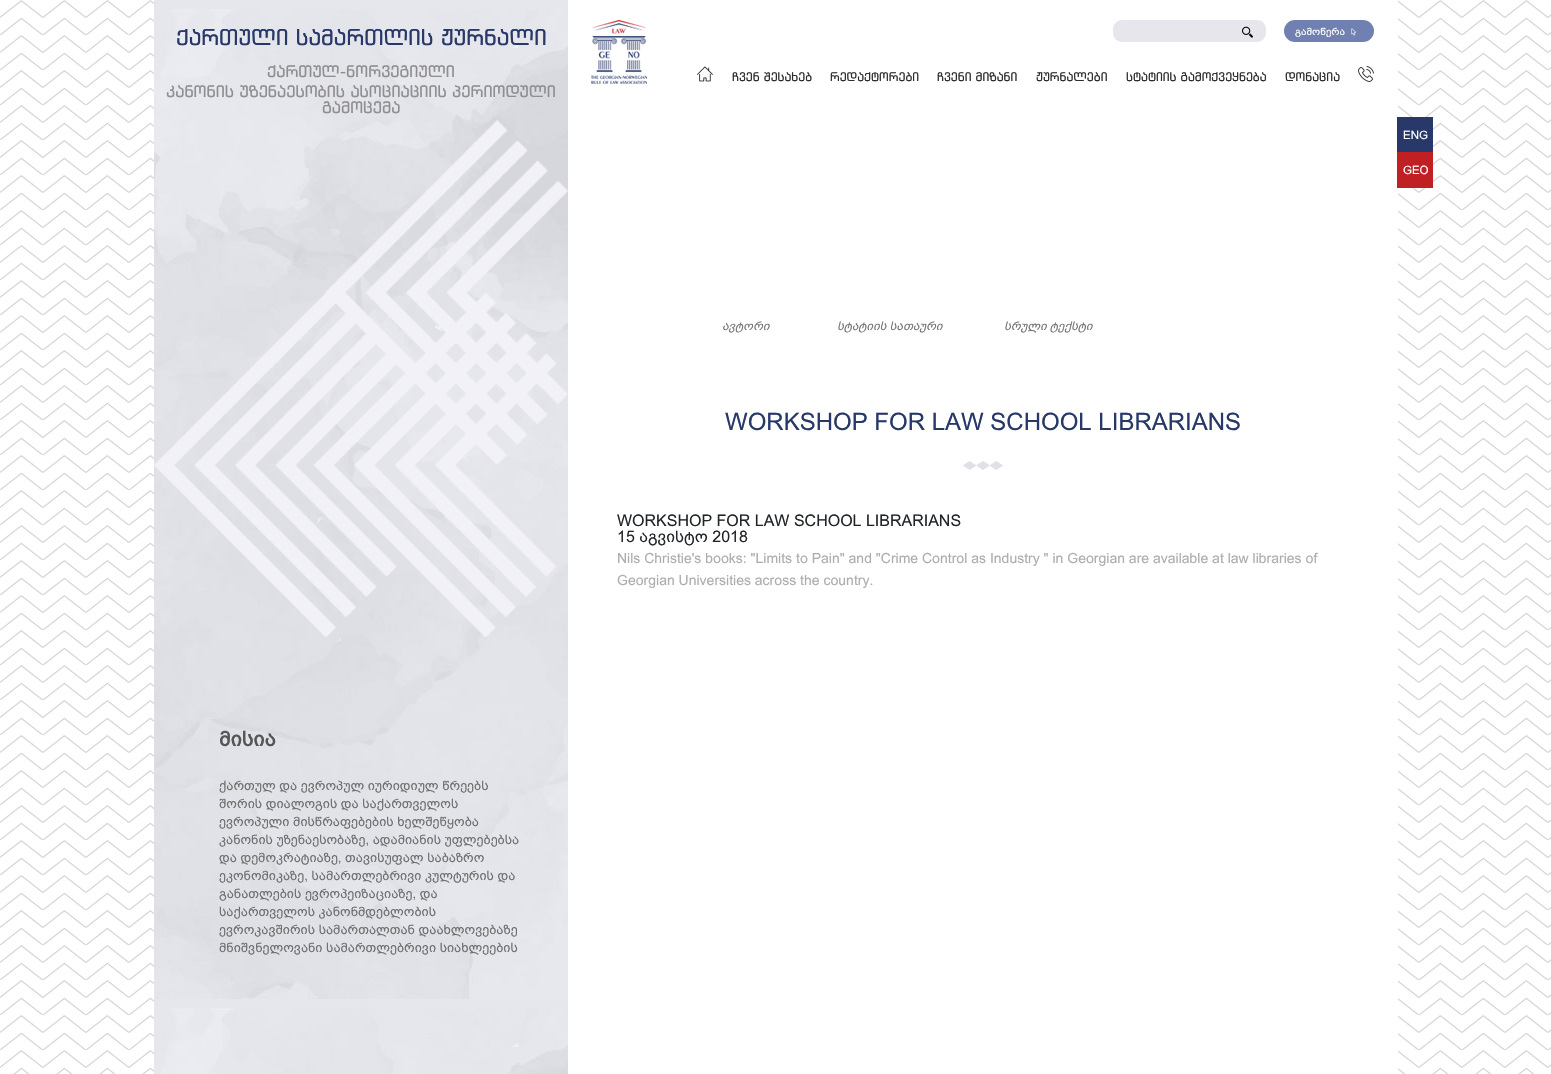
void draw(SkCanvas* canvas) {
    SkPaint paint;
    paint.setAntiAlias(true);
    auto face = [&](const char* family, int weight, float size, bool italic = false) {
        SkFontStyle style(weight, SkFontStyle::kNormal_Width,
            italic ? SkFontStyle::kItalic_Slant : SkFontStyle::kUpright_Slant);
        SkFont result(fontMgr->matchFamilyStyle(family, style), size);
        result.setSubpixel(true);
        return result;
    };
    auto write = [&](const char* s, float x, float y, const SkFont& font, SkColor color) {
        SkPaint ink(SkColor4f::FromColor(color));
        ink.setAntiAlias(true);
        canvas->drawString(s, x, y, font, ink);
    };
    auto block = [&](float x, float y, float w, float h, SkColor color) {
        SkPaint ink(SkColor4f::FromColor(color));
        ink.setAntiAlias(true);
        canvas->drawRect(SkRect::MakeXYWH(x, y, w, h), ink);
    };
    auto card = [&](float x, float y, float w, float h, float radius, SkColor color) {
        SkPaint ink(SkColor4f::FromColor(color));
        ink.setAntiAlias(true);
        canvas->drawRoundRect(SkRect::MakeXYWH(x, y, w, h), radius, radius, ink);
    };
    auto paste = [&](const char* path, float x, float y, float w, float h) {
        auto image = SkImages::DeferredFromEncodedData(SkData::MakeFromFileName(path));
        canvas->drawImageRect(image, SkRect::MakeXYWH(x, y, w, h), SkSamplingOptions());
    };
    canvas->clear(SK_ColorWHITE);
    paste("pic1.png", 0, 0, 1551, 1074);
    block(568, 0, 830, 1074, SK_ColorWHITE);
    paste("pic2.png", 154, 0, 414, 1074);
    auto kFont1 = face("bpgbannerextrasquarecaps", 400, 22);
    write("ქართული სამართლის ჟურნალი", 176, 45, kFont1, SkColorSetRGB(40, 56, 105));
    auto kFont2 = face("bpgbannerextrasquarecaps", 400, 16);
    write("ქართულ-ნორვეგიული", 267, 77, kFont2, SkColorSetRGB(143, 143, 146));
    write("კანონის უზენაესობის ასოციაციის პერიოდული", 166, 97, kFont2, SkColorSetRGB(143, 143, 146));
    write("გამოცემა", 322, 113, kFont2, SkColorSetRGB(143, 143, 146));
    paste("pic3.png", 154, 120, 414, 517);
    auto kFont3 = face("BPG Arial", 700, 20.5f);
    write("მისია", 219, 746, kFont3, SkColorSetRGB(86, 85, 85));
    auto kFont4 = face("BPG Arial", 400, 13);
    write("ქართულ და ევროპულ იურიდიულ წრეებს", 219, 790, kFont4, SkColorSetRGB(110, 110, 111));
    write("შორის დიალოგის და საქართველოს", 219, 808, kFont4, SkColorSetRGB(110, 110, 111));
    write("ევროპული მისწრაფებების ხელშეწყობა", 219, 826, kFont4, SkColorSetRGB(110, 110, 111));
    write("კანონის უზენაესობაზე, ადამიანის უფლებებსა", 219, 844, kFont4, SkColorSetRGB(110, 110, 111));
    write("და დემოკრატიაზე, თავისუფალ საბაზრო", 219, 862, kFont4, SkColorSetRGB(110, 110, 111));
    write("ეკონომიკაზე, სამართლებრივი კულტურის და", 219, 880, kFont4, SkColorSetRGB(110, 110, 111));
    write("განათლების ევროპეიზაციაზე, და", 219, 898, kFont4, SkColorSetRGB(110, 110, 111));
    write("საქართველოს კანონმდებლობის", 219, 916, kFont4, SkColorSetRGB(110, 110, 111));
    write("ევროკავშირის სამართალთან დაახლოვებაზე", 219, 934, kFont4, SkColorSetRGB(110, 110, 111));
    write("მნიშვნელოვანი სამართლებრივი სიახლეების", 219, 952, kFont4, SkColorSetRGB(110, 110, 111));
    paste("pic4.png", 591, 20, 56, 64);
    card(1113, 20, 153, 22, 9, SkColorSetRGB(230, 230, 236));
    paste("pic5.png", 1242, 26, 11, 12);
    card(1284, 20, 90, 22, 11, SkColorSetRGB(112, 128, 177));
    auto kFont5 = face("BPG Arial", 400, 10);
    write("გამოწერა", 1295, 35, kFont5, SK_ColorWHITE);
    paste("pic6.png", 1351, 28, 5, 8);
    paste("pic7.png", 697, 66, 16, 16);
    auto kFont6 = face("bpgbannerextrasquarecaps", 400, 12);
    write("ჩვენ შესახებ", 732, 81, kFont6, SkColorSetRGB(46, 44, 44));
    write("რედაქტორები", 830, 81, kFont6, SkColorSetRGB(46, 44, 44));
    write("ჩვენი მიზანი", 937, 81, kFont6, SkColorSetRGB(46, 44, 44));
    write("ჟურნალები", 1036, 81, kFont6, SkColorSetRGB(46, 44, 44));
    write("სტატიის გამოქვეყნება", 1126, 81, kFont6, SkColorSetRGB(46, 44, 44));
    write("დონაცია", 1285, 81, kFont6, SkColorSetRGB(46, 44, 44));
    paste("pic8.png", 1358, 66, 16, 16);
    block(1397, 117, 36, 35, SkColorSetRGB(40, 56, 105));
    auto kFont7 = face("BPG Arial", 400, 11.5f);
    write("ENG", 1403, 139, kFont7, SK_ColorWHITE);
    block(1397, 152, 36, 36, SkColorSetRGB(192, 31, 36));
    write("GEO", 1403, 174, kFont7, SK_ColorWHITE);
    auto kFont8 = face("BPG Arial", 400, 12, true);
    write("ავტორი", 722, 330, kFont8, SkColorSetRGB(117, 117, 117));
    write("სტატიის სათაური", 837, 330, kFont8, SkColorSetRGB(117, 117, 117));
    write("სრული ტექსტი", 1004, 330, kFont8, SkColorSetRGB(117, 117, 117));
    auto kFont9 = face("BPG Arial", 400, 24);
    write("WORKSHOP FOR LAW SCHOOL LIBRARIANS", 725, 430, kFont9, SkColorSetRGB(40, 56, 105));
    paste("pic9.png", 963, 461, 40, 9);
    auto kFont10 = face("BPG Arial", 400, 16);
    write("WORKSHOP FOR LAW SCHOOL LIBRARIANS", 617, 526, kFont10, SkColorSetRGB(33, 37, 41));
    write("15 აგვისტო 2018", 617, 542, kFont10, SkColorSetRGB(33, 37, 41));
    auto kFont11 = face("BPG Arial", 400, 14);
    write("Nils Christie's books: \"Limits to Pain\" and \"Crime Control as Industry \" in Georgian are available at law libraries of", 617, 563, kFont11, SkColorSetRGB(173, 173, 173));
    write("Georgian Universities across the country.", 617, 585, kFont11, SkColorSetRGB(173, 173, 173));
}
